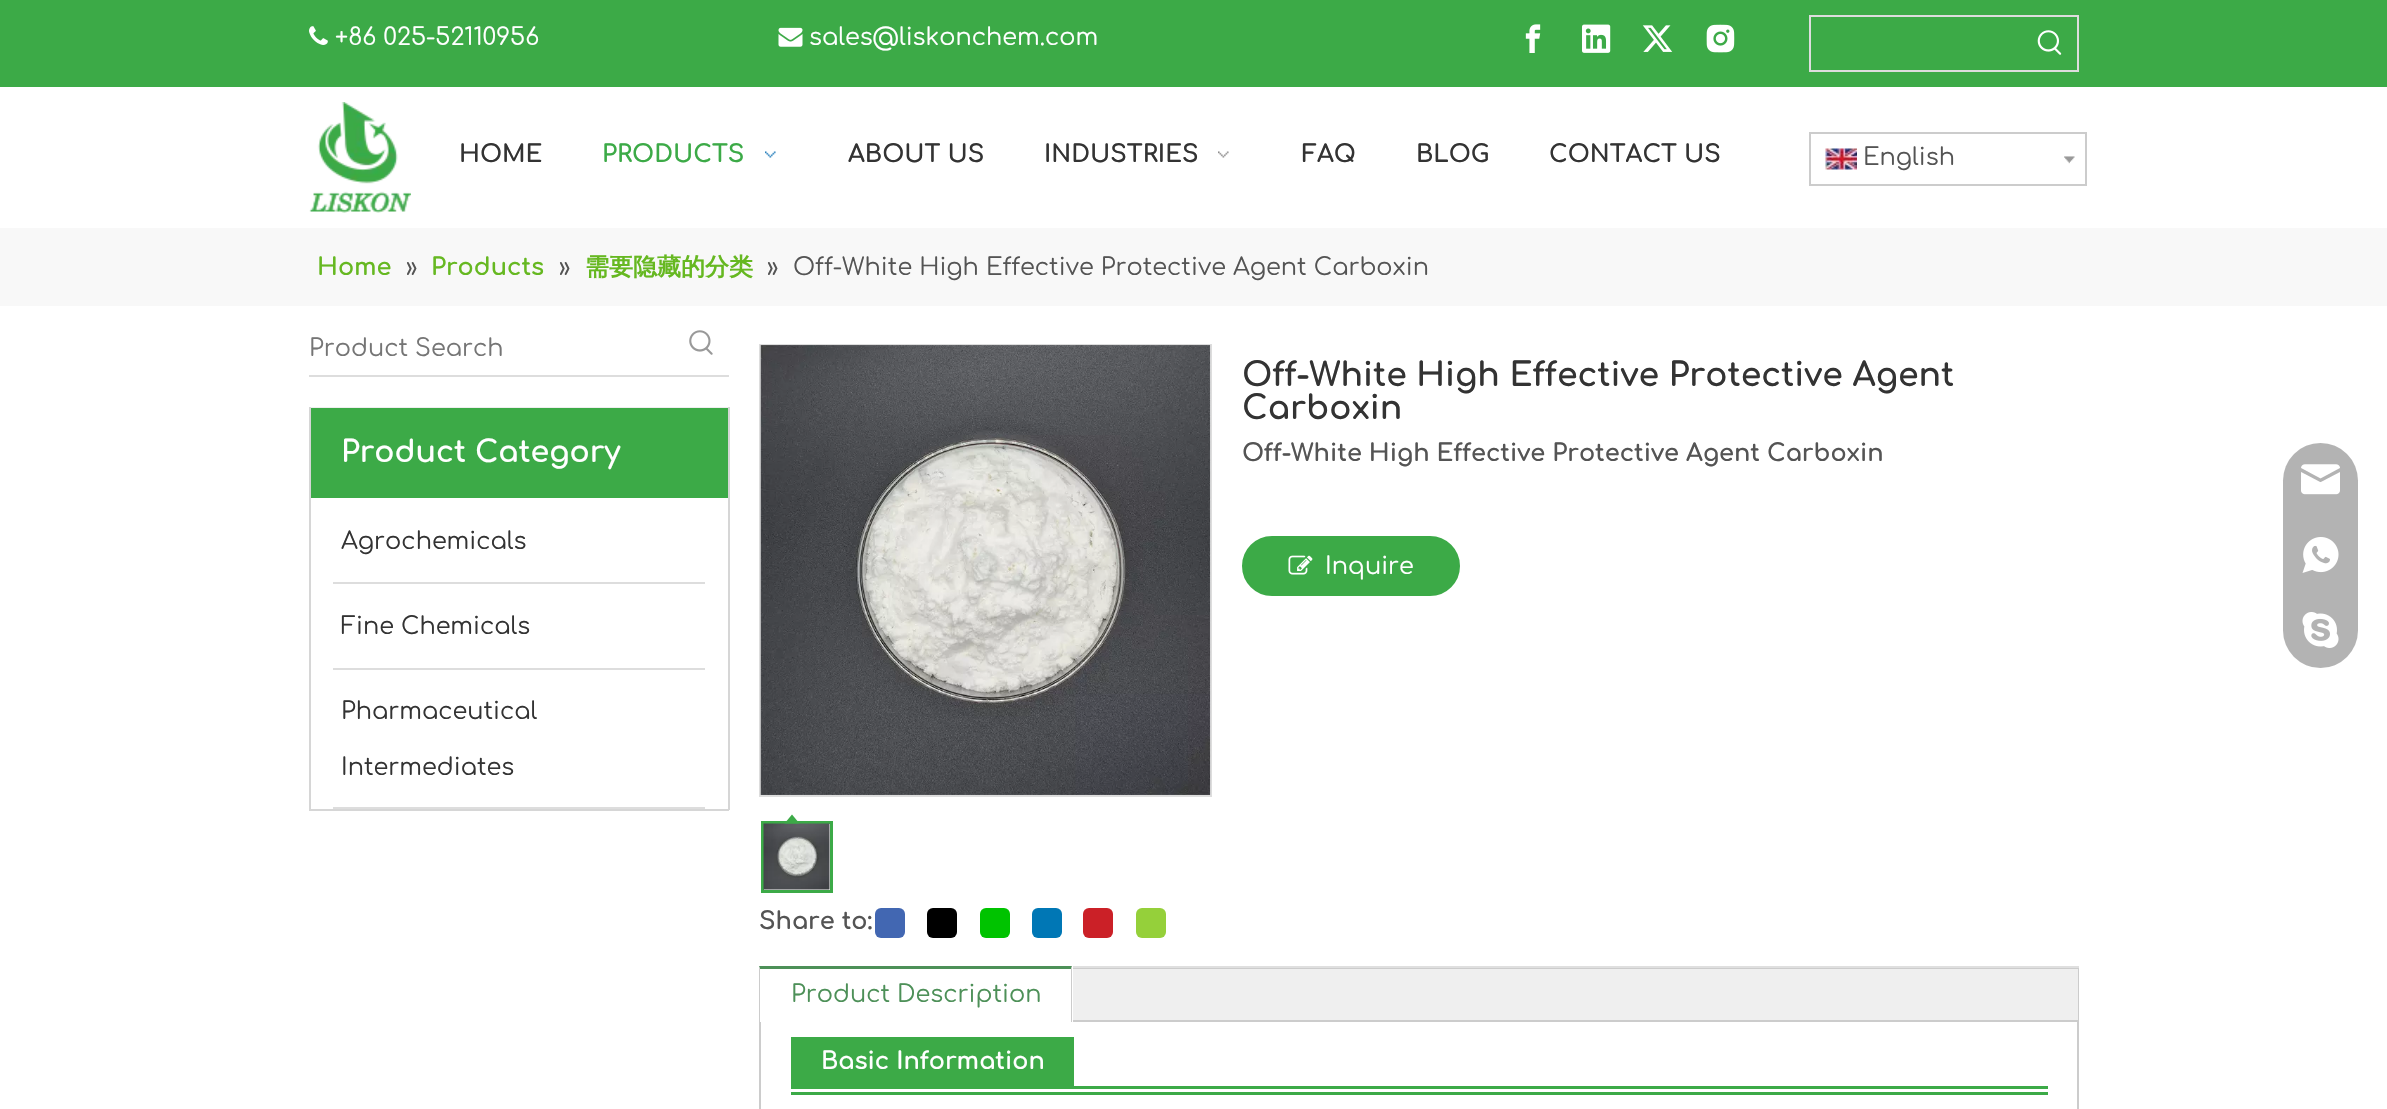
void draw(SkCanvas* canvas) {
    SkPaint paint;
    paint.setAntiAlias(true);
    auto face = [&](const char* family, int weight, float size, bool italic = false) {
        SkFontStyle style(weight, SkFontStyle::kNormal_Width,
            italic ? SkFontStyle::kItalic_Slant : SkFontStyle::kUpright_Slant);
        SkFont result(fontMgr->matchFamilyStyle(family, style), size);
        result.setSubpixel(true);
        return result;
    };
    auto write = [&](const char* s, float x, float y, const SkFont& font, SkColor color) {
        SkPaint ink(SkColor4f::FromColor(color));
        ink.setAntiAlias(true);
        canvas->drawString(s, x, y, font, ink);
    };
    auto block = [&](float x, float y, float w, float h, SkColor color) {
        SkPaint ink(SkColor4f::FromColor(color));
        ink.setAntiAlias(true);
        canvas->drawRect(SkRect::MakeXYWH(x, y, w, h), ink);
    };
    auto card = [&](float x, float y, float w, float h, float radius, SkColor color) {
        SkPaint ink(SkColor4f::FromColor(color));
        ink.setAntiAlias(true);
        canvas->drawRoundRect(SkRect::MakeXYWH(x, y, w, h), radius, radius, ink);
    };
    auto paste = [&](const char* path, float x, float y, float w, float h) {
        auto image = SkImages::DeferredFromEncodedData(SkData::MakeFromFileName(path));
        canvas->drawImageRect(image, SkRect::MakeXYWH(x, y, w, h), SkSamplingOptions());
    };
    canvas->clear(SK_ColorWHITE);
    block(0, 0, 2387, 87, SkColorSetRGB(60, 170, 71));
    paste("pic1.png", 309, 26, 19, 19);
    auto kFont1 = face("Comfortaa", 400, 24);
    write("+86 025-52110956", 335, 45, kFont1, SK_ColorWHITE);
    paste("pic2.png", 778, 27, 25, 20);
    write("sales@liskonchem.com", 809, 45, kFont1, SK_ColorWHITE);
    paste("pic3.png", 1525, 24, 16, 29);
    paste("pic4.png", 1582, 24, 29, 29);
    paste("pic5.png", 1642, 25, 31, 27);
    paste("pic6.png", 1706, 24, 29, 29);
    paint.setStyle(SkPaint::kStroke_Style);
    paint.setStrokeWidth(2);
    paint.setColor(SkColorSetRGB(221, 221, 221));
    canvas->drawRect(SkRect::MakeXYWH(1810, 16, 268, 55), paint);
    paste("pic7.png", 2037, 30, 25, 25);
    paste("pic8.png", 309, 102, 102, 111);
    auto kFont2 = face("Comfortaa", 700, 24);
    write("HOME", 459, 162, kFont2, SkColorSetRGB(51, 51, 51));
    write("PRODUCTS", 602, 162, kFont2, SkColorSetRGB(60, 170, 71));
    paste("pic9.png", 765, 151, 11, 7);
    write("ABOUT US", 848, 162, kFont2, SkColorSetRGB(51, 51, 51));
    write("INDUSTRIES", 1044, 162, kFont2, SkColorSetRGB(51, 51, 51));
    paste("pic10.png", 1218, 151, 11, 7);
    write("FAQ", 1302, 162, kFont2, SkColorSetRGB(51, 51, 51));
    write("BLOG", 1416, 162, kFont2, SkColorSetRGB(51, 51, 51));
    write("CONTACT US", 1549, 162, kFont2, SkColorSetRGB(51, 51, 51));
    paint.setColor(SkColorSetRGB(204, 204, 204));
    canvas->drawRect(SkRect::MakeXYWH(1810, 133, 276, 52), paint);
    paste("pic11.png", 1825, 148, 32, 22);
    write("English", 1863, 165, kFont1, SkColorSetRGB(84, 84, 84));
    paste("pic12.png", 2064, 156, 11, 8);
    block(0, 228, 2387, 78, SkColorSetRGB(248, 248, 248));
    write("Home", 317, 275, kFont2, SkColorSetRGB(102, 184, 33));
    write("»", 406, 275, kFont1, SkColorSetRGB(84, 84, 84));
    write("Products", 431, 275, kFont2, SkColorSetRGB(102, 184, 33));
    write("»", 559, 275, kFont1, SkColorSetRGB(84, 84, 84));
    auto kFont3 = face("WenQuanYi Zen Hei", 700, 24);
    write("需要隐藏的分类", 585, 275, kFont3, SkColorSetRGB(102, 184, 33));
    write("»", 767, 275, kFont1, SkColorSetRGB(84, 84, 84));
    write("Off-White High Effective Protective Agent Carboxin", 793, 275, kFont1, SkColorSetRGB(84, 84, 84));
    block(309, 375, 420, 2, SkColorSetRGB(221, 221, 221));
    write("Product Search", 309, 356, kFont1, SkColorSetRGB(117, 117, 117));
    paste("pic13.png", 689, 330, 24, 25);
    block(309, 407, 420, 1, SkColorSetRGB(238, 238, 238));
    block(728, 407, 2, 403, SkColorSetRGB(214, 214, 214));
    block(309, 809, 420, 2, SkColorSetRGB(214, 214, 214));
    block(309, 407, 2, 403, SkColorSetRGB(214, 214, 214));
    block(311, 408, 417, 90, SkColorSetRGB(60, 170, 71));
    auto kFont4 = face("Comfortaa", 700, 30);
    write("Product Category", 341, 462, kFont4, SK_ColorWHITE);
    write("Agrochemicals", 341, 549, kFont1, SkColorSetRGB(51, 51, 51));
    block(333, 582, 372, 2, SkColorSetRGB(221, 221, 221));
    write("Fine Chemicals", 341, 634, kFont1, SkColorSetRGB(51, 51, 51));
    block(333, 668, 372, 2, SkColorSetRGB(221, 221, 221));
    write("Pharmaceutical", 341, 719, kFont1, SkColorSetRGB(51, 51, 51));
    write("Intermediates", 341, 775, kFont1, SkColorSetRGB(51, 51, 51));
    block(333, 807, 372, 2, SkColorSetRGB(221, 221, 221));
    auto kFont5 = face("Comfortaa", 700, 33);
    write("Off-White High Effective Protective Agent", 1242, 386, kFont5, SkColorSetRGB(51, 51, 51));
    write("Carboxin", 1242, 419, kFont5, SkColorSetRGB(51, 51, 51));
    write("Off-White High Effective Protective Agent Carboxin", 1242, 461, kFont2, SkColorSetRGB(84, 84, 84));
    paint.setStyle(SkPaint::kFill_Style);
    paint.setColor(SkColorSetRGB(60, 170, 71));
    canvas->drawRoundRect(SkRect::MakeXYWH(1243, 537, 216, 58), 29, 29, paint);
    paint.setStyle(SkPaint::kStroke_Style);
    canvas->drawRoundRect(SkRect::MakeXYWH(1243, 537, 216, 58), 29, 29, paint);
    paste("pic14.png", 1288, 555, 25, 20);
    write("Inquire", 1325, 574, kFont1, SK_ColorWHITE);
    paint.setColor(SkColorSetRGB(221, 221, 221));
    canvas->drawRect(SkRect::MakeXYWH(760, 345, 451, 451), paint);
    block(1210, 345, 1, 450, SK_ColorWHITE);
    paste("pic15.png", 760, 345, 451, 450);
    paint.setStrokeWidth(3);
    paint.setColor(SkColorSetRGB(60, 170, 71));
    canvas->drawRect(SkRect::MakeXYWH(762.5f, 822.5f, 69, 69), paint);
    paste("pic16.png", 763, 823, 67, 67);
    paint.setStyle(SkPaint::kFill_Style);
    canvas->drawPath(SkPathBuilder().moveTo(799.5f, 823.5f).lineTo(784.5f, 823.5f).lineTo(792, 814.5f).close().detach(), paint);
    write("Share to:", 759, 929, kFont2, SkColorSetRGB(84, 84, 84));
    card(875, 908, 30, 30, 6, SkColorSetRGB(66, 103, 178));
    card(927, 908, 30, 30, 6, SK_ColorBLACK);
    card(980, 908, 30, 30, 6, SkColorSetRGB(0, 195, 0));
    card(1032, 908, 30, 30, 6, SkColorSetRGB(0, 119, 181));
    card(1083, 908, 30, 30, 6, SkColorSetRGB(203, 32, 39));
    card(1136, 908, 30, 30, 6, SkColorSetRGB(149, 208, 58));
    block(1073, 966, 1006, 2, SkColorSetRGB(223, 223, 223));
    paint.setStyle(SkPaint::kStroke_Style);
    paint.setStrokeWidth(2);
    paint.setColor(SkColorSetRGB(204, 204, 204));
    canvas->drawRect(SkRect::MakeXYWH(760, 969, 1318, 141), paint);
    block(1073, 969, 1005, 51, SkColorSetRGB(239, 239, 239));
    block(1073, 1020, 1005, 2, SkColorSetRGB(204, 204, 204));
    block(759, 968, 314, 54, SK_ColorWHITE);
    paint.setStyle(SkPaint::kFill_Style);
    paint.setColor(SkColorSetRGB(77, 144, 88));
    canvas->drawPath(SkPathBuilder().moveTo(759, 966).lineTo(1072, 966).lineTo(1071, 969).lineTo(760, 969).close().detach(), paint);
    paint.setColor(SkColorSetRGB(204, 204, 204));
    canvas->drawPath(SkPathBuilder().moveTo(1072, 966).lineTo(1072, 1022).lineTo(1071, 1022).lineTo(1071, 969).close().detach(), paint);
    canvas->drawPath(SkPathBuilder().moveTo(759, 1022).lineTo(759, 966).lineTo(760, 969).lineTo(760, 1022).close().detach(), paint);
    write("Product Description", 791, 1002, kFont1, SkColorSetRGB(77, 144, 88));
    block(791, 1092, 1257, 3, SkColorSetRGB(60, 170, 71));
    block(1074, 1086, 974, 3, SkColorSetRGB(60, 170, 71));
    block(791, 1037, 283, 52, SkColorSetRGB(60, 170, 71));
    write("Basic Information", 821, 1069, kFont2, SK_ColorWHITE);
    card(2283, 443, 75, 225, 37.5f, SkColorSetRGB(179, 179, 179));
    paste("pic17.png", 2301, 464, 39, 31);
    paste("pic18.png", 2302, 537, 37, 36);
    paste("pic19.png", 2302, 612, 37, 36);
}
